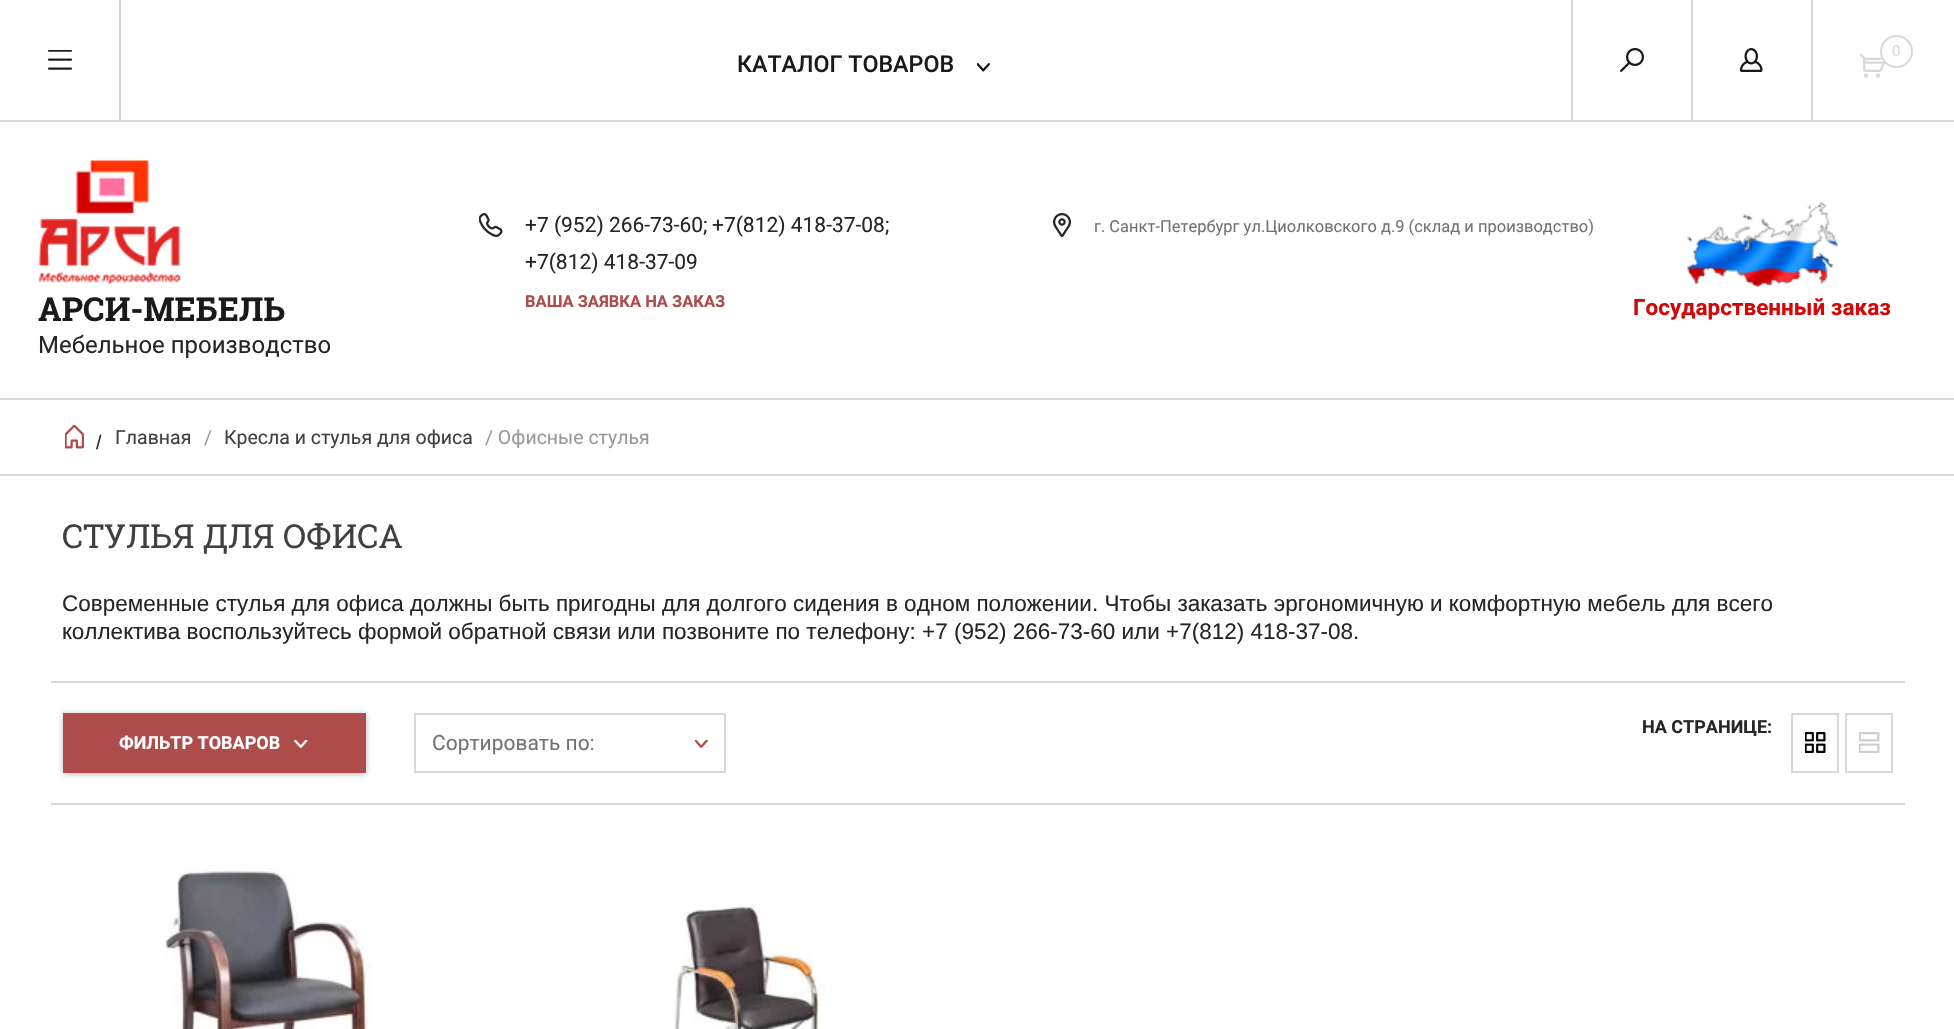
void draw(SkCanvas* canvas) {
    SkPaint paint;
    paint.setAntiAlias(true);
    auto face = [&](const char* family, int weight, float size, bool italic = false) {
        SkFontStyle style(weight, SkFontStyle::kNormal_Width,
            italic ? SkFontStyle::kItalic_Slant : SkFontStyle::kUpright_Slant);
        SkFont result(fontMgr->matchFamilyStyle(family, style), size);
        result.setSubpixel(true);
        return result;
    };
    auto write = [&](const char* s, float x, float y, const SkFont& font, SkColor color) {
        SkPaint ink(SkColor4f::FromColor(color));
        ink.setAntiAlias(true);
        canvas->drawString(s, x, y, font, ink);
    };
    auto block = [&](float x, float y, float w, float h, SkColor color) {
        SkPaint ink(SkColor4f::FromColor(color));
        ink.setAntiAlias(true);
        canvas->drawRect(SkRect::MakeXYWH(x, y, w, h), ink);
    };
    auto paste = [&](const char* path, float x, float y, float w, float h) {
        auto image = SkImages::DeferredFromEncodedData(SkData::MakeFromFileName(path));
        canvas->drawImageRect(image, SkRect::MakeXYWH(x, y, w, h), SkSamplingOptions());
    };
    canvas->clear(SK_ColorWHITE);
    block(0, 120, 1954, 2, SkColorSetRGB(217, 217, 217));
    paste("pic1.png", 48, 50, 24, 20);
    block(119, 0, 2, 120, SkColorSetRGB(217, 217, 217));
    block(1571, 0, 2, 120, SkColorSetRGB(217, 217, 217));
    paste("pic2.png", 1620, 48, 24, 24);
    paste("pic3.png", 1740, 48, 23, 24);
    block(1691, 0, 2, 120, SkColorSetRGB(217, 217, 217));
    paste("pic4.png", 1860, 54, 25, 24);
    block(1811, 0, 2, 120, SkColorSetRGB(217, 217, 217));
    paint.setColor(SK_ColorWHITE);
    canvas->drawCircle(1896.5f, 51.5f, 16.5f, paint);
    paint.setStyle(SkPaint::kStroke_Style);
    paint.setStrokeWidth(2);
    paint.setColor(SkColorSetARGB(38, 0, 0, 0));
    canvas->drawCircle(1896.5f, 51.5f, 15.5f, paint);
    auto kFont1 = face("Roboto", 400, 15);
    write("0", 1892, 56, kFont1, SkColorSetRGB(217, 217, 217));
    auto kFont2 = face("Roboto", 500, 23.25f);
    write("КАТАЛОГ ТОВАРОВ", 737, 72, kFont2, SkColorSetRGB(26, 26, 26));
    paste("pic5.png", 977, 63, 13, 9);
    paste("pic6.png", 479, 213, 24, 24);
    auto kFont3 = face("Roboto", 400, 21);
    write("+7 (952) 266-73-60;", 525, 232, kFont3, SkColorSetRGB(38, 38, 38));
    write("+7(812) 418-37-08;", 712, 232, kFont3, SkColorSetRGB(38, 38, 38));
    write("+7(812) 418-37-09", 525, 269, kFont3, SkColorSetRGB(38, 38, 38));
    auto kFont4 = face("Roboto", 700, 16.5f);
    write("ВАША ЗАЯВКА НА ЗАКАЗ", 525, 307, kFont4, SkColorSetRGB(173, 76, 75));
    paste("pic7.png", 1053, 213, 18, 24);
    auto kFont5 = face("Roboto", 400, 16.5f);
    write("г. Санкт-Петербург ул.Циолковского д.9 (склад и производство)", 1094, 232, kFont5, SkColorSetRGB(115, 115, 115));
    paste("pic8.png", 38, 160, 143, 124);
    auto kFont6 = face("Roboto Slab", 700, 33);
    write("АРСИ-МЕБЕЛЬ", 38, 321, kFont6, SkColorSetRGB(26, 26, 26));
    auto kFont7 = face("Roboto", 400, 24);
    write("Мебельное производство", 38, 353, kFont7, SkColorSetRGB(38, 38, 38));
    paste("pic9.png", 1687, 202, 151, 85);
    auto kFont8 = face("Roboto", 700, 22.5f);
    write("Государственный заказ", 1633, 315, kFont8, SkColorSetRGB(212, 6, 6));
    block(0, 398, 1954, 2, SkColorSetRGB(217, 217, 217));
    block(0, 474, 1954, 2, SkColorSetRGB(217, 217, 217));
    paste("pic10.png", 65, 425, 19, 24);
    auto kFont9 = face("Liberation Sans", 400, 19.5f);
    write("/", 96, 449, kFont9, SkColorSetRGB(38, 38, 38));
    auto kFont10 = face("Roboto", 400, 19.5f);
    write("Главная", 115, 444, kFont10, SkColorSetRGB(64, 64, 64));
    write("/", 204, 444, kFont10, SkColorSetRGB(153, 153, 153));
    write("Кресла и стулья для офиса", 224, 444, kFont10, SkColorSetRGB(64, 64, 64));
    write("/ Офисные стулья", 485, 444, kFont10, SkColorSetRGB(153, 153, 153));
    auto kFont11 = face("Roboto Slab", 400, 33);
    write("СТУЛЬЯ ДЛЯ ОФИСА", 62, 548, kFont11, SkColorSetRGB(64, 64, 64));
    auto kFont12 = face("Liberation Sans", 400, 22.5f);
    write("Современные стулья для офиса должны быть пригодны для долгого сидения в одном положении. Чтобы заказать эргономичную и комфортную мебель для всего", 62, 611, kFont12, SkColorSetRGB(38, 38, 38));
    write("коллектива воспользуйтесь формой обратной связи или позвоните по телефону: +7 (952) 266-73-60 или +7(812) 418-37-08.", 62, 639, kFont12, SkColorSetRGB(38, 38, 38));
    block(51, 681, 1854, 2, SkColorSetRGB(217, 217, 217));
    block(51, 803, 1854, 2, SkColorSetRGB(217, 217, 217));
    auto kFont13 = face("Roboto", 700, 18);
    write("НА СТРАНИЦЕ:", 1642, 733, kFont13, SkColorSetRGB(38, 38, 38));
    paste("pic11.png", 1805, 732, 21, 21);
    paint.setColor(SkColorSetRGB(217, 217, 217));
    canvas->drawRect(SkRect::MakeXYWH(1792, 714, 46, 58), paint);
    paste("pic12.png", 1859, 732, 21, 21);
    canvas->drawRect(SkRect::MakeXYWH(1846, 714, 46, 58), paint);
    paint.setStyle(SkPaint::kFill_Style);
    paint.setColor(SkColorSetARGB(71, 0, 0, 0));
    paint.setMaskFilter(SkMaskFilter::MakeBlur(kNormal_SkBlurStyle, 3));
    canvas->drawRect(SkRect::MakeXYWH(63, 714, 303, 60), paint);
    paint.setMaskFilter(nullptr);
    block(63, 713, 303, 60, SkColorSetRGB(173, 76, 75));
    write("ФИЛЬТР ТОВАРОВ", 119, 749, kFont13, SK_ColorWHITE);
    paste("pic13.png", 294, 740, 14, 8);
    paint.setStyle(SkPaint::kStroke_Style);
    paint.setColor(SkColorSetRGB(217, 217, 217));
    canvas->drawRect(SkRect::MakeXYWH(415, 714, 310, 58), paint);
    write("Сортировать по:", 432, 750, kFont3, SkColorSetRGB(115, 115, 115));
    paste("pic14.png", 695, 740, 13, 8);
    paste("pic15.png", 165, 868, 207, 161);
    paste("pic16.png", 674, 904, 151, 125);
}
